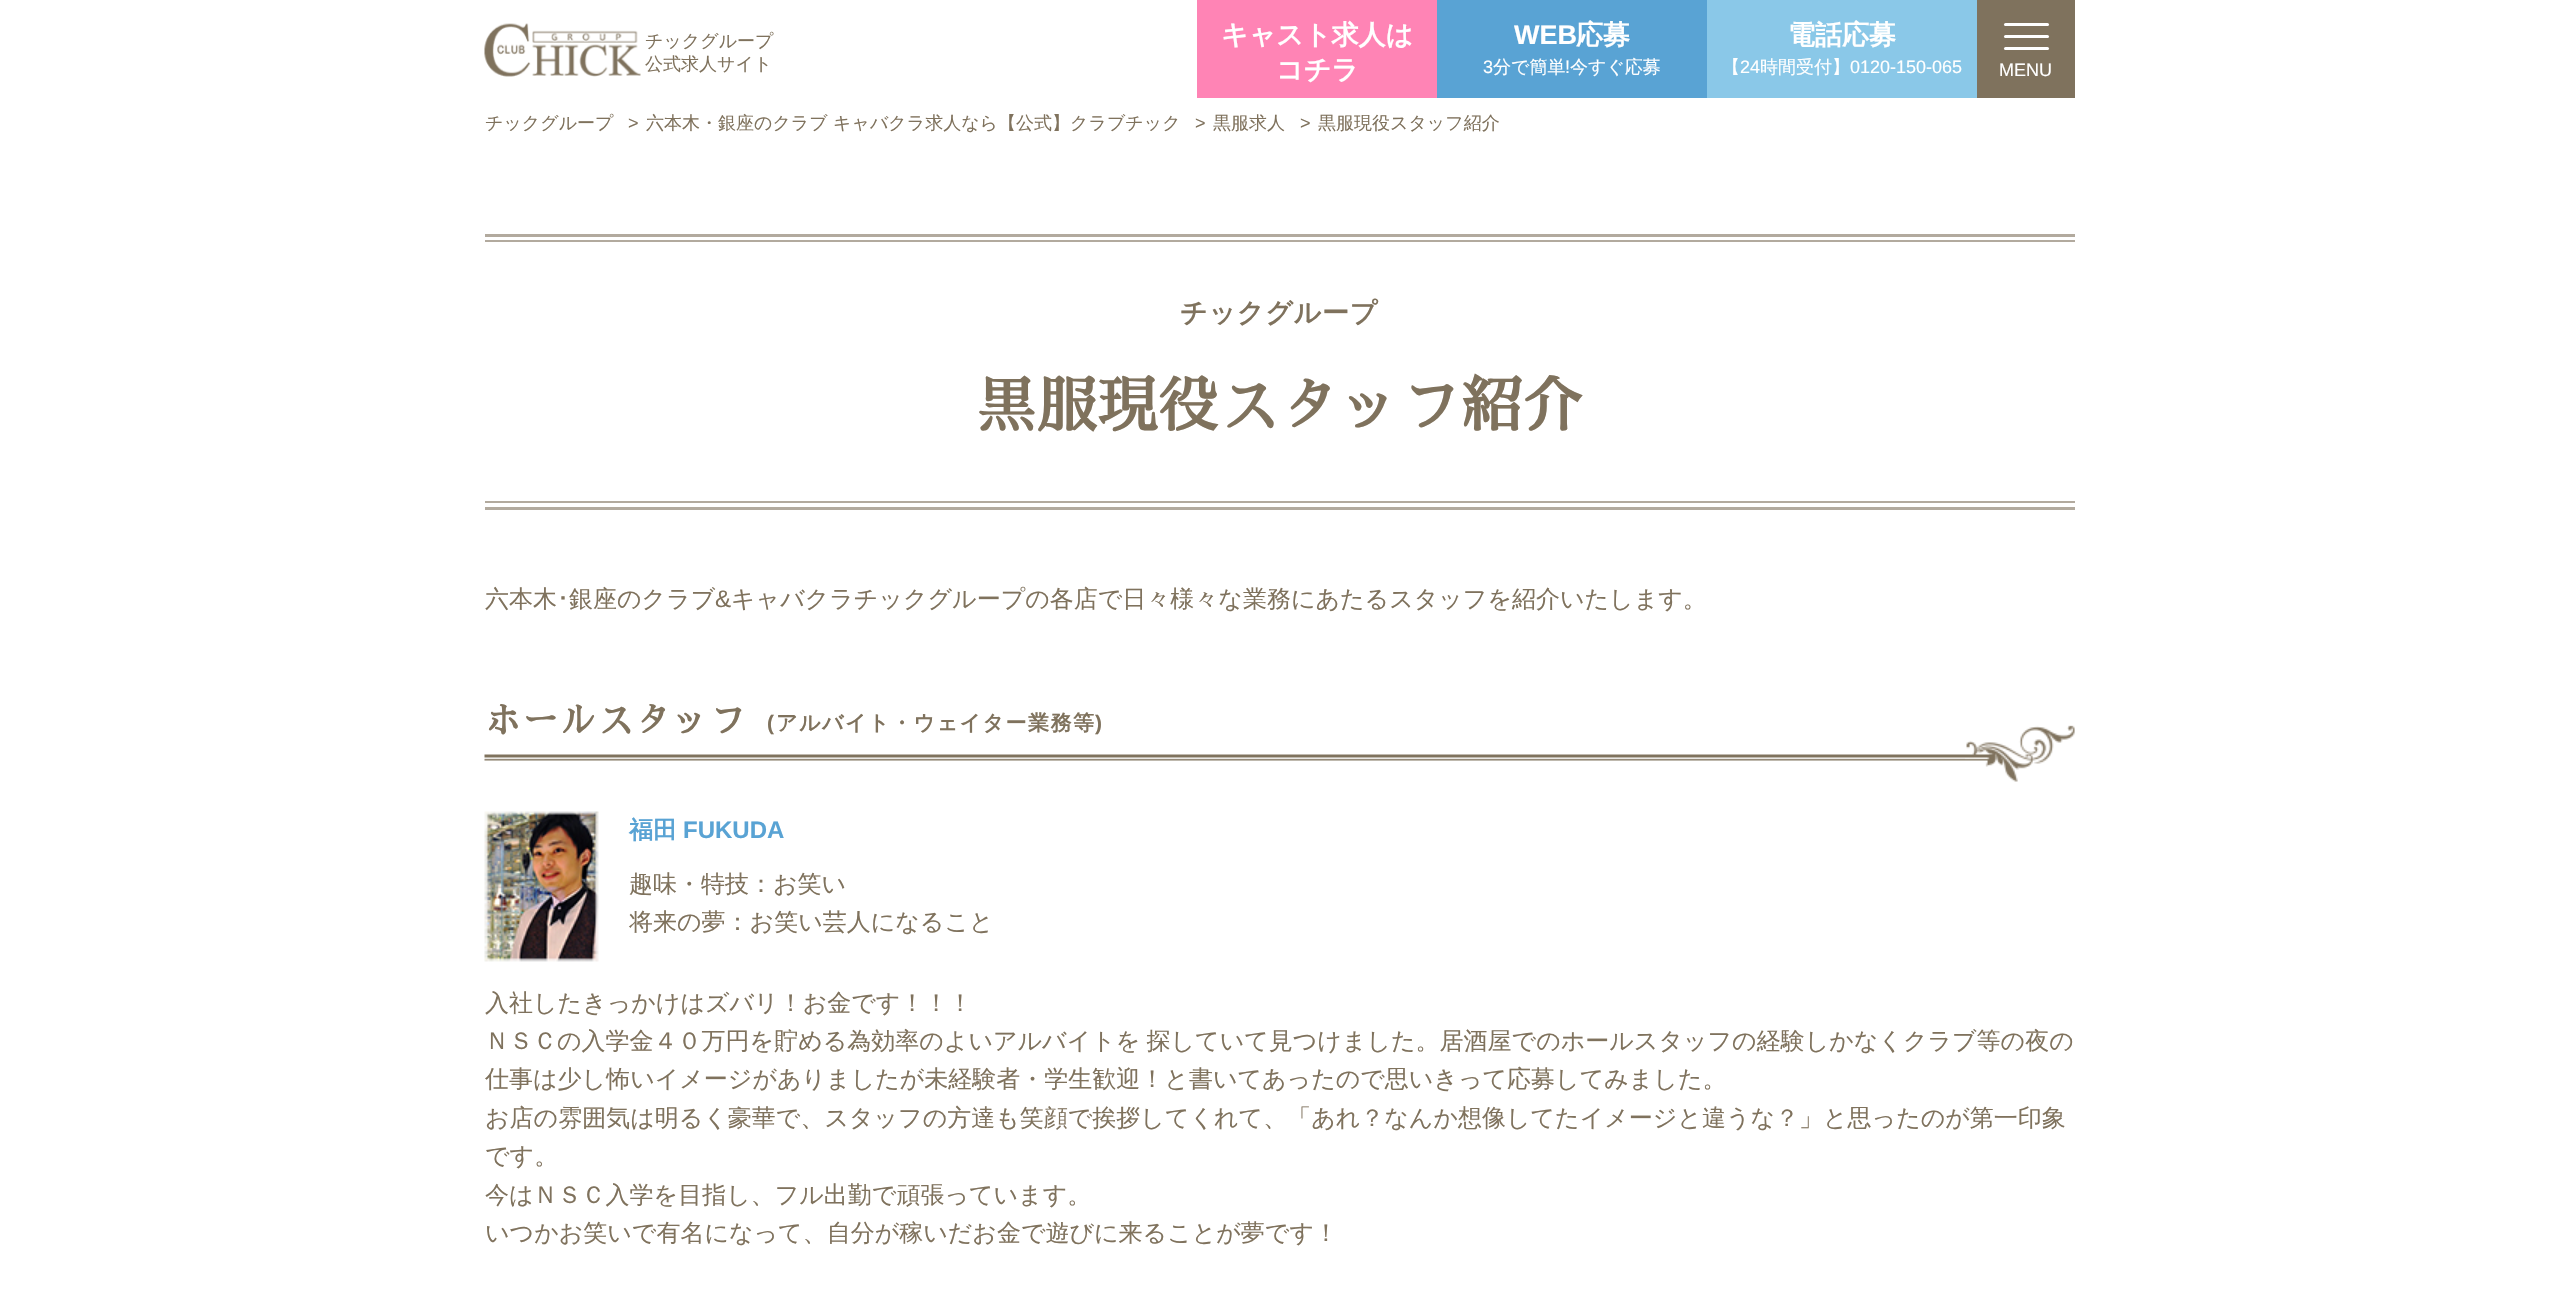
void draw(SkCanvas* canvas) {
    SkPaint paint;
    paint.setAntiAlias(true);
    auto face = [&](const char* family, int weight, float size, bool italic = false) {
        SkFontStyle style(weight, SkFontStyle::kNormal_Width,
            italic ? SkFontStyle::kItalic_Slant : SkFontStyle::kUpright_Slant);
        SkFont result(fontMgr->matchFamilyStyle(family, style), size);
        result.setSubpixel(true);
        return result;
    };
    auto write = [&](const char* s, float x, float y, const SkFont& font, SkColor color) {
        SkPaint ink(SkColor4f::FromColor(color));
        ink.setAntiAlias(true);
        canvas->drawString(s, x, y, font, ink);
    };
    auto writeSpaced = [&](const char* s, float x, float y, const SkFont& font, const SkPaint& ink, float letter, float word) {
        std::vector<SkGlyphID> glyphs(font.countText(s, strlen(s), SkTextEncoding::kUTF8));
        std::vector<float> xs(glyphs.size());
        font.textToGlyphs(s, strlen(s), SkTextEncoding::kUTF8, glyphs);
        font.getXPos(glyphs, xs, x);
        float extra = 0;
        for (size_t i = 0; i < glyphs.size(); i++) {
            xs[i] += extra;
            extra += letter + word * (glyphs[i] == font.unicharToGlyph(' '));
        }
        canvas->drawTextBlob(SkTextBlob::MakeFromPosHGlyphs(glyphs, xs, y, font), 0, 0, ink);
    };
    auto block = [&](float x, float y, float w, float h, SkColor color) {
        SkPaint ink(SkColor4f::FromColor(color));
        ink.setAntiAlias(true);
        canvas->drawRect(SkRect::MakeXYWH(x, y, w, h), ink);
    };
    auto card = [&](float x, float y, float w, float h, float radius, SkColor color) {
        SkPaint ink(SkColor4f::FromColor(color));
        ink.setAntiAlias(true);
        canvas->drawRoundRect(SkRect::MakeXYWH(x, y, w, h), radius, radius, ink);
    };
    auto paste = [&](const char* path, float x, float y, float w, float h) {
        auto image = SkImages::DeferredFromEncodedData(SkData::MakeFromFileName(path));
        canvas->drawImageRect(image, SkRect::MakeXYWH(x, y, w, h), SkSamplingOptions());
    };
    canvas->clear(SK_ColorWHITE);
    paste("pic1.png", 484, 23, 157, 54);
    auto kFont1 = face("WenQuanYi Zen Hei", 500, 18);
    write("チックグループ", 645, 47, kFont1, SkColorSetRGB(127, 114, 93));
    write("公式求人サイト", 645, 70, kFont1, SkColorSetRGB(127, 114, 93));
    block(1197, 0, 240, 98, SkColorSetRGB(255, 132, 181));
    auto kFont2 = face("WenQuanYi Zen Hei", 700, 27);
    write("キャスト求人は", 1221, 44, kFont2, SK_ColorWHITE);
    write("コチラ", 1276, 79, kFont2, SK_ColorWHITE);
    block(1437, 0, 270, 98, SkColorSetRGB(89, 163, 212));
    auto kFont3 = face("Liberation Sans", 700, 27);
    write("WEB", 1514, 44, kFont3, SK_ColorWHITE);
    write("応募", 1576, 44, kFont2, SK_ColorWHITE);
    auto kFont4 = face("Liberation Sans", 400, 18);
    write("3", 1483, 73, kFont4, SK_ColorWHITE);
    write("分で簡単", 1493, 73, kFont1, SK_ColorWHITE);
    write("!", 1565, 73, kFont4, SK_ColorWHITE);
    write("今すぐ応募", 1570, 73, kFont1, SK_ColorWHITE);
    block(1707, 0, 270, 98, SkColorSetRGB(138, 200, 232));
    write("電話応募", 1788, 44, kFont2, SK_ColorWHITE);
    write("【", 1722, 73, kFont1, SK_ColorWHITE);
    write("24", 1740, 73, kFont4, SK_ColorWHITE);
    write("時間受付】", 1760, 73, kFont1, SK_ColorWHITE);
    write("0120-150-065", 1850, 73, kFont4, SK_ColorWHITE);
    block(1977, 0, 98, 98, SkColorSetRGB(127, 114, 93));
    card(2004, 23, 45, 3, 1.5f, SK_ColorWHITE);
    card(2004, 35, 45, 3, 1.5f, SK_ColorWHITE);
    card(2004, 47, 45, 3, 1.5f, SK_ColorWHITE);
    write("MENU", 1999, 76, kFont4, SK_ColorWHITE);
    write("チックグループ", 485, 129, kFont1, SkColorSetRGB(127, 114, 93));
    write(">", 628, 129, kFont4, SkColorSetRGB(127, 114, 93));
    write("六本木・銀座のクラブ キャバクラ求人なら【公式】クラブチック", 646, 129, kFont1, SkColorSetRGB(127, 114, 93));
    write(">", 1195, 129, kFont4, SkColorSetRGB(127, 114, 93));
    write("黒服求人", 1213, 129, kFont1, SkColorSetRGB(127, 114, 93));
    write(">", 1300, 129, kFont4, SkColorSetRGB(127, 114, 93));
    write("黒服現役スタッフ紹介", 1318, 129, kFont1, SkColorSetRGB(127, 114, 93));
    block(485, 234, 1590, 3, SkColorSetRGB(178, 170, 158));
    block(485, 507, 1590, 3, SkColorSetRGB(178, 170, 158));
    block(485, 240, 1590, 2, SkColorSetRGB(178, 170, 158));
    paint.setColor(SkColorSetRGB(127, 114, 93));
    writeSpaced("チックグループ", 1180, 322, kFont2, paint, 0.75f, 0);
    auto kFont5 = face("Sawarabi Mincho", 700, 60);
    writeSpaced("黒服現役スタッフ紹介", 976, 427, kFont5, paint, 0.75f, 0);
    block(485, 501, 1590, 2, SkColorSetRGB(178, 170, 158));
    auto kFont6 = face("WenQuanYi Zen Hei", 500, 24);
    write("六本木", 485, 607, kFont6, SkColorSetRGB(127, 114, 93));
    auto kFont7 = face("IPAPGothic", 400, 24);
    write("･", 557, 607, kFont7, SkColorSetRGB(127, 114, 93));
    write("銀座のクラブ", 569, 607, kFont6, SkColorSetRGB(127, 114, 93));
    auto kFont8 = face("Liberation Sans", 400, 24);
    write("&", 715, 607, kFont8, SkColorSetRGB(127, 114, 93));
    write("キャバクラチックグループの各店で日々様々な業務にあたるスタッフを紹介いたします。", 731, 607, kFont6, SkColorSetRGB(127, 114, 93));
    paste("pic2.png", 484, 754, 1481, 7);
    auto kFont9 = face("Sawarabi Mincho", 700, 36);
    writeSpaced("ホールスタッフ", 485, 733, kFont9, paint, 1.5f, 0);
    auto kFont10 = face("Liberation Sans", 700, 21);
    writeSpaced("(", 767, 730, kFont10, paint, 1.5f, 0);
    auto kFont11 = face("WenQuanYi Zen Hei", 700, 21);
    writeSpaced("アルバイト・ウェイター業務等", 776, 730, kFont11, paint, 1.5f, 0);
    writeSpaced(")", 1095, 730, kFont10, paint, 1.5f, 0);
    paste("pic3.png", 1965, 725, 110, 57);
    paste("pic4.png", 484, 811, 115, 151);
    auto kFont12 = face("WenQuanYi Zen Hei", 700, 24);
    write("福田", 629, 838, kFont12, SkColorSetRGB(89, 163, 212));
    auto kFont13 = face("Liberation Sans", 700, 24);
    write("FUKUDA", 683, 838, kFont13, SkColorSetRGB(89, 163, 212));
    write("趣味・特技：お笑い", 629, 892, kFont6, SkColorSetRGB(127, 114, 93));
    write("将来の夢：お笑い芸人になること", 629, 930, kFont6, SkColorSetRGB(127, 114, 93));
    write("入社したきっかけはズバリ！お金です！！！", 485, 1011, kFont6, SkColorSetRGB(127, 114, 93));
    writeSpaced("ＮＳＣの入学金４０万円を貯める為効率のよいアルバイトを 探していて見つけました。居酒屋でのホールスタッフの経験しかなくクラブ等の夜の", 485, 1049, kFont6, paint, 0, -1);
    write("仕事は少し怖いイメージがありましたが未経験者・学生歓迎！と書いてあったので思いきって応募してみました。", 485, 1087, kFont6, SkColorSetRGB(127, 114, 93));
    write("お店の雰囲気は明るく豪華で、スタッフの方達も笑顔で挨拶してくれて、「あれ？なんか想像してたイメージと違うな？」と思ったのが第一印象", 485, 1126, kFont6, SkColorSetRGB(127, 114, 93));
    write("です。", 485, 1164, kFont6, SkColorSetRGB(127, 114, 93));
    write("今はＮＳＣ入学を目指し、フル出勤で頑張っています。", 485, 1203, kFont6, SkColorSetRGB(127, 114, 93));
    write("いつかお笑いで有名になって、自分が稼いだお金で遊びに来ることが夢です！", 485, 1241, kFont6, SkColorSetRGB(127, 114, 93));
}
